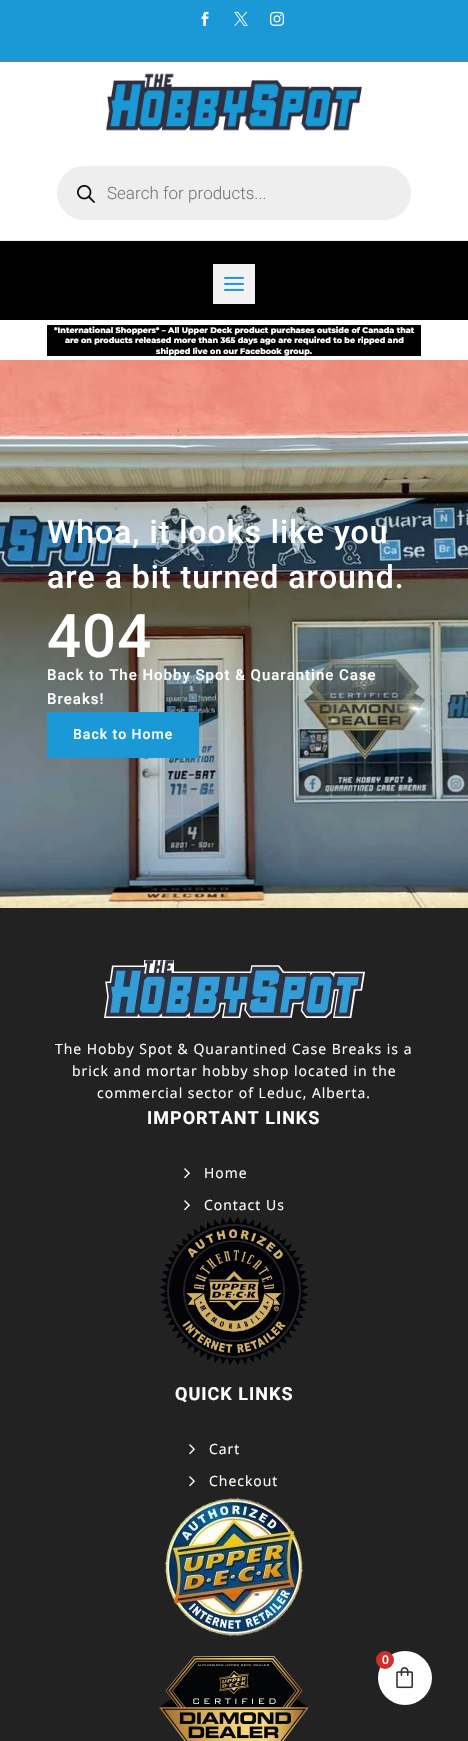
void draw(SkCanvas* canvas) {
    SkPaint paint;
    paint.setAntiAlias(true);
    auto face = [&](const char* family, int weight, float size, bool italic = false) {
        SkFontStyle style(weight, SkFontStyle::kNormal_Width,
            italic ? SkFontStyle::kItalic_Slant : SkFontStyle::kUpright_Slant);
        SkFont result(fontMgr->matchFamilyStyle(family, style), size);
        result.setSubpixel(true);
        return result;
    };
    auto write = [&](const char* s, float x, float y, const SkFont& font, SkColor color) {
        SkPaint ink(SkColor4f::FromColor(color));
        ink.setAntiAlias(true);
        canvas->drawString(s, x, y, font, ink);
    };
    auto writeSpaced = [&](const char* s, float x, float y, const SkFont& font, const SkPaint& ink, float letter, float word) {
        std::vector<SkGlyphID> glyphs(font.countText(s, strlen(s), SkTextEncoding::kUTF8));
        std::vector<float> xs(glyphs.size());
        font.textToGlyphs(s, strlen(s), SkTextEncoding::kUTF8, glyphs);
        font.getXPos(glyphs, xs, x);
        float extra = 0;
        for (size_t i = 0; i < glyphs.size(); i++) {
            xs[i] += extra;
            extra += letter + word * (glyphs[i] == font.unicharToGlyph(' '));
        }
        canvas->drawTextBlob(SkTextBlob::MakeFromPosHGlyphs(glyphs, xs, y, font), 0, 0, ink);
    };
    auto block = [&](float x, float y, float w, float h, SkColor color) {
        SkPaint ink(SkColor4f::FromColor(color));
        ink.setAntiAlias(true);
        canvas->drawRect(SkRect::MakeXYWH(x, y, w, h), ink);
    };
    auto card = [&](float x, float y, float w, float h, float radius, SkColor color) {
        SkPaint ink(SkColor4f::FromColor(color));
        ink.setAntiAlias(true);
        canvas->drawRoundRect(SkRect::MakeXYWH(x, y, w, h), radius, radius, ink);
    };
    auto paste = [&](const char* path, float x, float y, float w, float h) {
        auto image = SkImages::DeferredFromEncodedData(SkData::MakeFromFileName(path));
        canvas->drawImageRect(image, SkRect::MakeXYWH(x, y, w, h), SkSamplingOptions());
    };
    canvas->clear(SK_ColorWHITE);
    block(0, 0, 468, 61, SkColorSetRGB(27, 153, 214));
    block(0, 61, 468, 1, SkColorSetRGB(119, 119, 119));
    paste("pic1.png", 201, 11, 8, 15);
    paste("pic2.png", 234, 11, 14, 15);
    paste("pic3.png", 270, 11, 14, 15);
    block(0, 240, 468, 1, SkColorSetRGB(238, 238, 238));
    paste("pic4.png", 106, 73, 256, 58);
    card(57, 166, 354, 54, 27, SkColorSetRGB(238, 238, 238));
    paste("pic5.png", 77, 185, 18, 18);
    auto kFont1 = face("Roboto", 300, 17);
    write("Search for products...", 107, 199, kFont1, SkColorSetRGB(119, 119, 119));
    block(0, 241, 468, 79, SK_ColorBLACK);
    block(213, 264, 42, 40, SkColorSetRGB(242, 242, 242));
    paste("pic6.png", 224, 276, 20, 15);
    block(47, 325, 374, 31, SK_ColorBLACK);
    auto kFont2 = face("Montserrat", 100, 8);
    write("*International Shoppers* – All Upper Deck product purchases outside of Canada that", 54, 333, kFont2, SK_ColorWHITE);
    write("are on products released more than 365 days ago are required to be ripped and", 65, 343, kFont2, SK_ColorWHITE);
    write("shipped live on our Facebook group.", 156, 354, kFont2, SK_ColorWHITE);
    paste("pic7.png", 0, 360, 468, 548);
    auto kFont3 = face("Roboto", 500, 32);
    paint.setColor(SK_ColorWHITE);
    writeSpaced("Whoa, it looks like you", 47, 543, kFont3, paint, 1, 0);
    writeSpaced("are a bit turned around.", 47, 588, kFont3, paint, 1, 0);
    auto kFont4 = face("Roboto", 500, 60);
    writeSpaced("404", 47, 657, kFont4, paint, 1, 0);
    auto kFont5 = face("Roboto", 500, 15);
    writeSpaced("Back to The Hobby Spot & Quarantine Case", 47, 680, kFont5, paint, 1, 0);
    writeSpaced("Breaks!", 47, 704, kFont5, paint, 1, 0);
    block(47, 712, 152, 46, SkColorSetRGB(27, 153, 214));
    auto kFont6 = face("Roboto", 500, 14);
    writeSpaced("Back to Home", 73, 739, kFont6, paint, 1, 0);
    block(0, 908, 468, 833, SkColorSetRGB(34, 34, 34));
    paste("pic8.png", 104, 960, 261, 58);
    auto kFont7 = face("Open Sans", 400, 14);
    writeSpaced("The Hobby Spot & Quarantined Case Breaks is a", 55, 1054, kFont7, paint, 1, 0);
    writeSpaced("brick and mortar hobby shop located in the", 72, 1076, kFont7, paint, 1, 0);
    writeSpaced("commercial sector of Leduc, Alberta.", 97, 1098, kFont7, paint, 1, 0);
    auto kFont8 = face("Roboto", 700, 18);
    writeSpaced("IMPORTANT LINKS", 147, 1124, kFont8, paint, 1, 0);
    paste("pic9.png", 184, 1168, 6, 11);
    writeSpaced("Home", 204, 1178, kFont7, paint, 1, 0);
    paste("pic9.png", 184, 1200, 6, 11);
    writeSpaced("Contact Us", 204, 1210, kFont7, paint, 1, 0);
    paste("pic10.png", 160, 1217, 148, 148);
    writeSpaced("QUICK LINKS", 175, 1400, kFont8, paint, 1, 0);
    paste("pic9.png", 189, 1444, 6, 11);
    writeSpaced("Cart", 209, 1454, kFont7, paint, 1, 0);
    paste("pic9.png", 189, 1476, 6, 11);
    writeSpaced("Checkout", 209, 1486, kFont7, paint, 1, 0);
    paste("pic11.png", 164, 1498, 139, 139);
    paste("pic12.png", 159, 1656, 150, 85);
    canvas->drawCircle(405, 1678, 27, paint);
    paste("pic13.png", 396, 1667, 17, 22);
    paint.setColor(SkColorSetRGB(207, 46, 46));
    canvas->drawCircle(385, 1660, 9, paint);
    auto kFont9 = face("Open Sans", 600, 12);
    write("0", 382, 1664, kFont9, SK_ColorWHITE);
}
